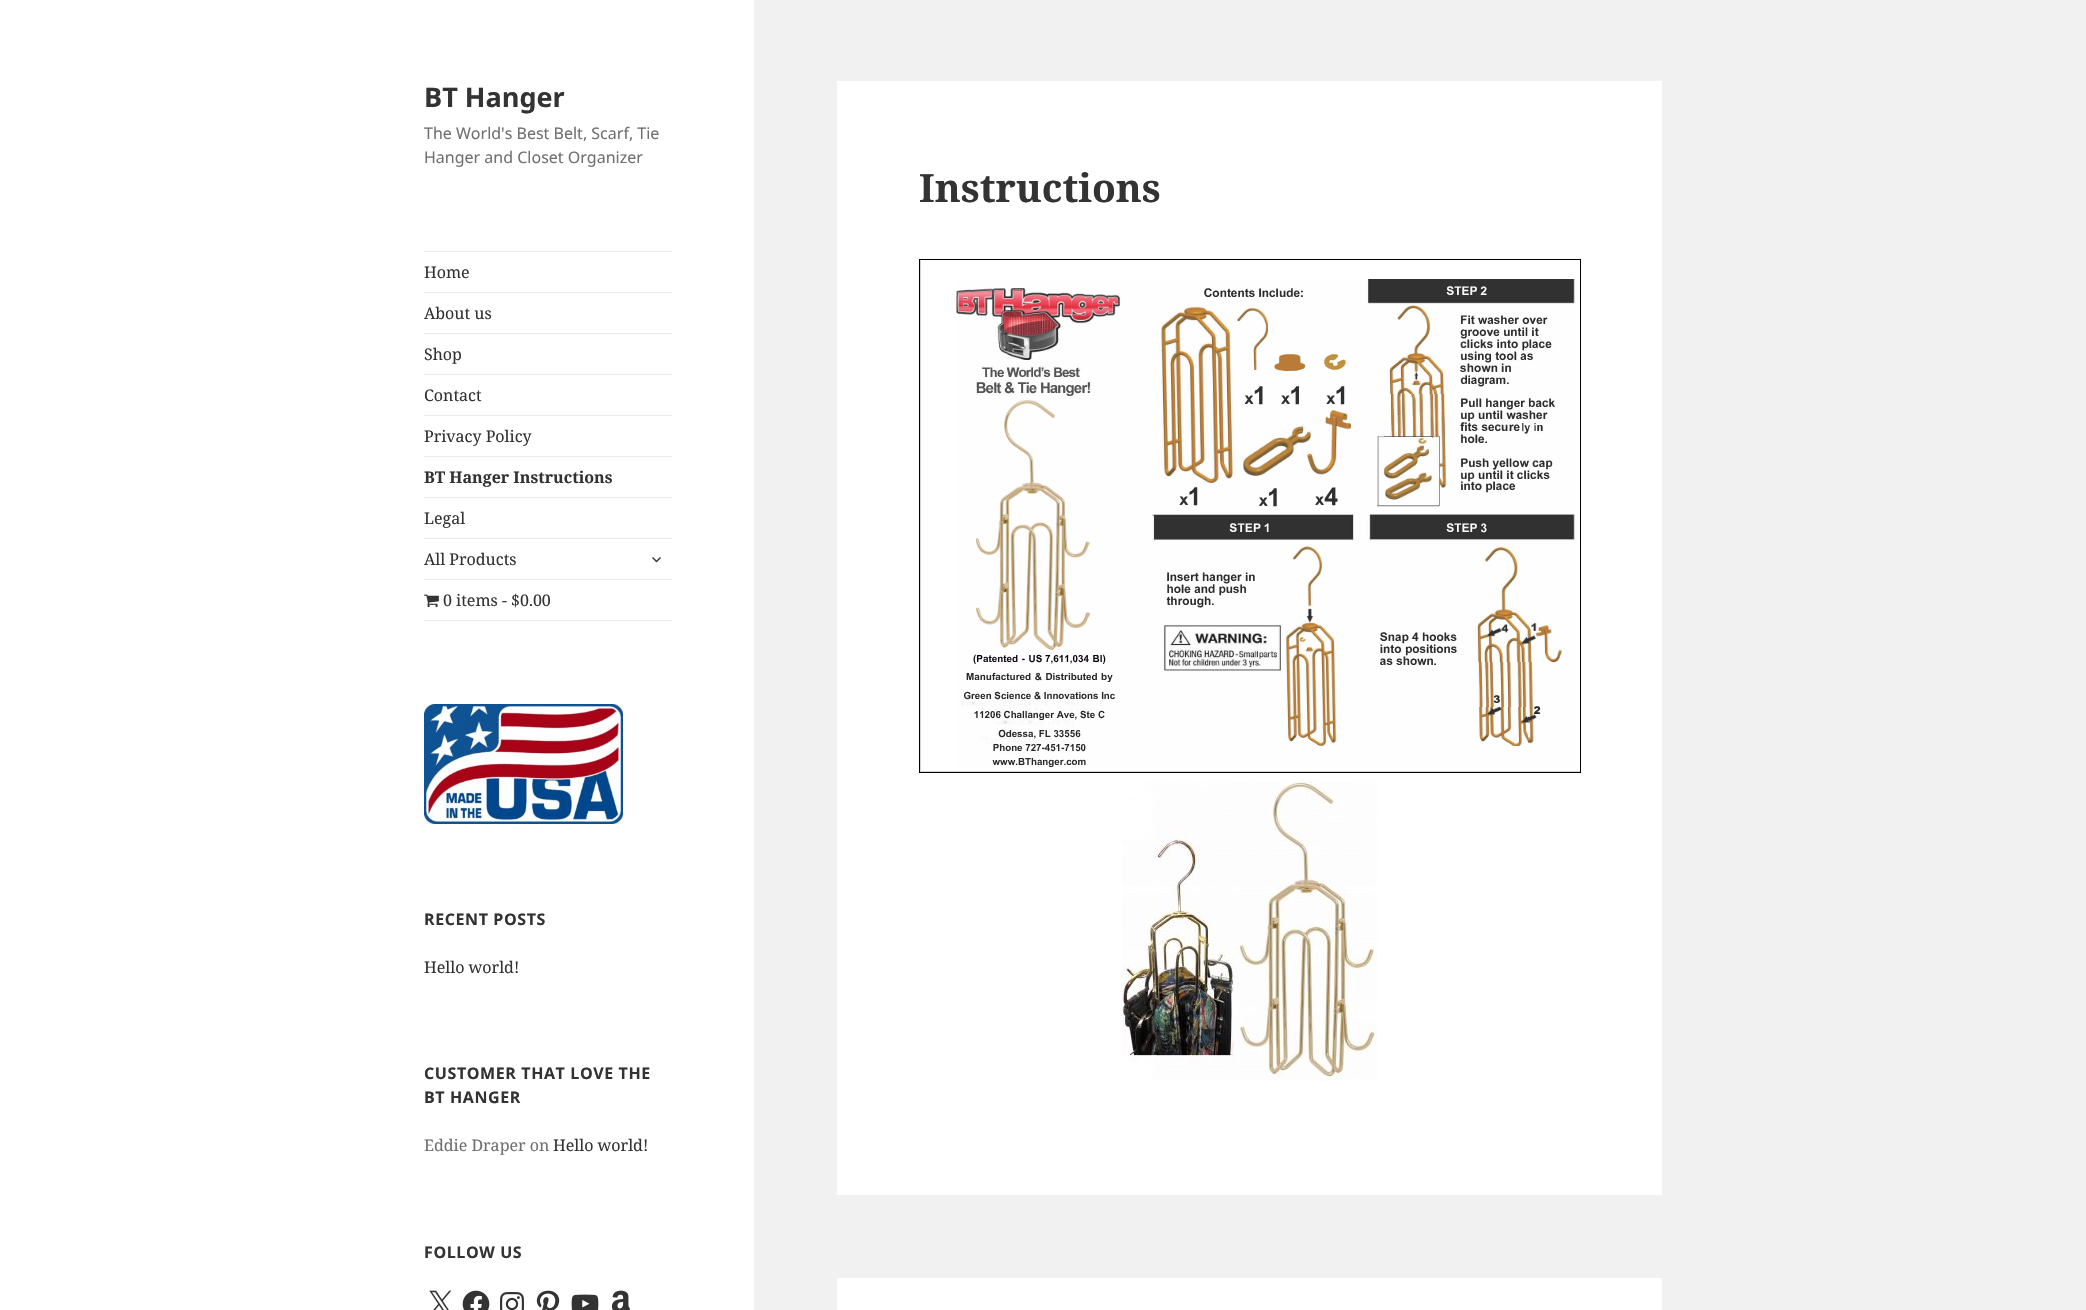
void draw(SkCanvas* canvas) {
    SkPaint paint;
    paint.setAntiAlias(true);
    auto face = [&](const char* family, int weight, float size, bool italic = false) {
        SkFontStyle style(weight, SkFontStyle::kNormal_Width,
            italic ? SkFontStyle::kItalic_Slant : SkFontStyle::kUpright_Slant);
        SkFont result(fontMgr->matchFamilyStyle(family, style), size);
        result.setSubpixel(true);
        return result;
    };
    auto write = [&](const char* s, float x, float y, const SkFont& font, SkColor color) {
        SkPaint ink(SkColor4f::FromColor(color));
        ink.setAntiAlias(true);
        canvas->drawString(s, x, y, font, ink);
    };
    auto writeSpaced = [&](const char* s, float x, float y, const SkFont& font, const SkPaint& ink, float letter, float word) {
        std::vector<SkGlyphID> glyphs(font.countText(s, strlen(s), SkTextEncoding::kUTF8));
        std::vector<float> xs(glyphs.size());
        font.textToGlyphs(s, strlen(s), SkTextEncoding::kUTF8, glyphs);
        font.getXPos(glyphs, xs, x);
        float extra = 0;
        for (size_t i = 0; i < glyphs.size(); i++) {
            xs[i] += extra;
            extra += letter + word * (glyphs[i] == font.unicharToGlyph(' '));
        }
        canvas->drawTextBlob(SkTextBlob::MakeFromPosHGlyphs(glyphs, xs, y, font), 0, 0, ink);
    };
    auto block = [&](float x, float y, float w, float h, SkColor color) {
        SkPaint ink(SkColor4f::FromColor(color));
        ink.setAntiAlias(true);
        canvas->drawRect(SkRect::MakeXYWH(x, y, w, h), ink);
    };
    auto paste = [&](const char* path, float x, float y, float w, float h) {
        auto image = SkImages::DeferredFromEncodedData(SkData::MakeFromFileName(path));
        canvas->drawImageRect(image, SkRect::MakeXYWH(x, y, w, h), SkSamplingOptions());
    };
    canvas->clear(SkColorSetRGB(241, 241, 241));
    block(0, 0, 754, 1310, SK_ColorWHITE);
    auto kFont1 = face("Noto Sans", 700, 27);
    write("BT Hanger", 424, 107, kFont1, SkColorSetRGB(51, 51, 51));
    auto kFont2 = face("Noto Sans", 400, 16);
    write("The World's Best Belt, Scarf, Tie", 424, 139, kFont2, SkColorSetRGB(112, 112, 112));
    write("Hanger and Closet Organizer", 424, 163, kFont2, SkColorSetRGB(112, 112, 112));
    block(424, 251, 248, 1, SkColorSetRGB(235, 235, 235));
    block(424, 620, 248, 1, SkColorSetRGB(235, 235, 235));
    auto kFont3 = face("Noto Serif", 400, 16);
    write("Home", 424, 278, kFont3, SkColorSetRGB(51, 51, 51));
    block(424, 292, 248, 1, SkColorSetRGB(235, 235, 235));
    write("About us", 424, 319, kFont3, SkColorSetRGB(51, 51, 51));
    block(424, 333, 248, 1, SkColorSetRGB(235, 235, 235));
    write("Shop", 424, 360, kFont3, SkColorSetRGB(51, 51, 51));
    block(424, 374, 248, 1, SkColorSetRGB(235, 235, 235));
    write("Contact", 424, 401, kFont3, SkColorSetRGB(51, 51, 51));
    block(424, 415, 248, 1, SkColorSetRGB(235, 235, 235));
    write("Privacy Policy", 424, 442, kFont3, SkColorSetRGB(51, 51, 51));
    block(424, 456, 248, 1, SkColorSetRGB(235, 235, 235));
    auto kFont4 = face("Noto Serif", 700, 16);
    write("BT Hanger Instructions", 424, 483, kFont4, SkColorSetRGB(51, 51, 51));
    block(424, 497, 248, 1, SkColorSetRGB(235, 235, 235));
    write("Legal", 424, 524, kFont3, SkColorSetRGB(51, 51, 51));
    block(424, 538, 248, 1, SkColorSetRGB(235, 235, 235));
    write("All Products", 424, 565, kFont3, SkColorSetRGB(51, 51, 51));
    paste("pic1.png", 652, 557, 9, 6);
    block(424, 579, 248, 1, SkColorSetRGB(235, 235, 235));
    paste("pic2.png", 424, 594, 15, 14);
    write("0 items - $0.00", 443, 606, kFont3, SkColorSetRGB(51, 51, 51));
    paste("pic3.png", 424, 704, 199, 120);
    auto kFont5 = face("Noto Sans", 700, 16);
    paint.setColor(SkColorSetRGB(51, 51, 51));
    writeSpaced("RECENT POSTS", 424, 925, kFont5, paint, 0.6f, 0);
    write("Hello world!", 424, 973, kFont3, SkColorSetRGB(51, 51, 51));
    writeSpaced("CUSTOMER THAT LOVE THE", 424, 1079, kFont5, paint, 0.6f, 0);
    writeSpaced("BT HANGER", 424, 1103, kFont5, paint, 0.6f, 0);
    write("Eddie Draper on", 424, 1151, kFont3, SkColorSetRGB(112, 112, 112));
    write("Hello world!", 553, 1151, kFont3, SkColorSetRGB(51, 51, 51));
    writeSpaced("FOLLOW US", 424, 1258, kFont5, paint, 0.6f, 0);
    paste("pic4.png", 429, 1290, 23, 20);
    paste("pic5.png", 462, 1290, 28, 20);
    paste("pic6.png", 500, 1292, 24, 18);
    paste("pic7.png", 536, 1290, 24, 20);
    paste("pic8.png", 571, 1294, 28, 16);
    paste("pic9.png", 611, 1290, 19, 20);
    block(837, 81, 825, 1114, SK_ColorWHITE);
    auto kFont6 = face("Noto Serif", 700, 39);
    write("Instructions", 919, 202, kFont6, SkColorSetRGB(51, 51, 51));
    paint.setColor(SkColorSetRGB(211, 211, 211));
    canvas->drawRect(SkRect::MakeXYWH(919.5f, 259.5f, 661, 513), paint);
    paint.setStyle(SkPaint::kStroke_Style);
    paint.setStrokeWidth(1);
    paint.setColor(SK_ColorBLACK);
    canvas->drawRect(SkRect::MakeXYWH(919.5f, 259.5f, 661, 513), paint);
    block(921, 260, 659, 511, SK_ColorWHITE);
    paste("pic10.png", 956, 279, 621, 488);
    paste("pic11.png", 1122, 781, 255, 300);
    block(837, 1278, 825, 32, SK_ColorWHITE);
}
